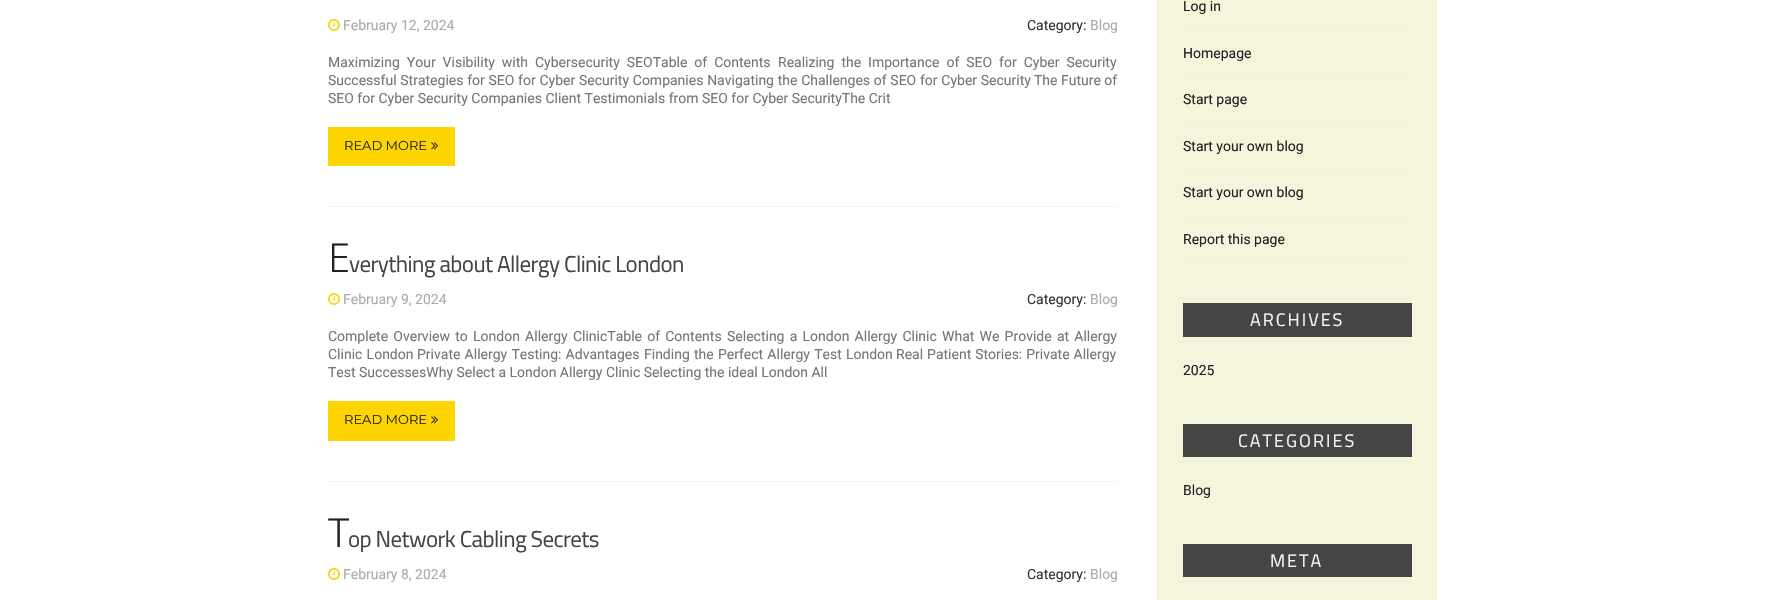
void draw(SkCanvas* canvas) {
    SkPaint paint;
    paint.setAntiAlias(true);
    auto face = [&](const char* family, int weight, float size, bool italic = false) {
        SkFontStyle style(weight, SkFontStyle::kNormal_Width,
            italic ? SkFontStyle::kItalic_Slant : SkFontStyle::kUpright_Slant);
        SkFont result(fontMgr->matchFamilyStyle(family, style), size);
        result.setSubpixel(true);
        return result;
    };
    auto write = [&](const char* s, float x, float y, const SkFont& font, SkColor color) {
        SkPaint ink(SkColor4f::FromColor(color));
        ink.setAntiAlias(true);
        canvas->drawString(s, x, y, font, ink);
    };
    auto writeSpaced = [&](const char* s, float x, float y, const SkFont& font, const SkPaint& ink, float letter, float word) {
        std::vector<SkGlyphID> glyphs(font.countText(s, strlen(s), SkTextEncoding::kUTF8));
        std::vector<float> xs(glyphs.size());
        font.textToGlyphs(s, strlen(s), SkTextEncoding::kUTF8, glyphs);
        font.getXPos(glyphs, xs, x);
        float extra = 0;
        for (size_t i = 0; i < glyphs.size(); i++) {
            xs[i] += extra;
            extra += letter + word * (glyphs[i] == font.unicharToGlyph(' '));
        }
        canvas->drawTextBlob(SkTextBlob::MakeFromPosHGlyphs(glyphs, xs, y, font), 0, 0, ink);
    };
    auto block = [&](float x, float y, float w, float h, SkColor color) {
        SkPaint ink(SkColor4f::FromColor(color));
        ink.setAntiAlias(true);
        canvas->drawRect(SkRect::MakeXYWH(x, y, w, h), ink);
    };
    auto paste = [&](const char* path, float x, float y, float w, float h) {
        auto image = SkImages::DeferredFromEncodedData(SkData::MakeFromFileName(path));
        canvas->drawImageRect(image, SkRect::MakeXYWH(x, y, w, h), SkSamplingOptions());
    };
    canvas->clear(SK_ColorWHITE);
    paste("pic1.png", 328, 19, 12, 12);
    auto kFont1 = face("Roboto", 400, 14);
    write("February 12, 2024", 343, 30, kFont1, SkColorSetRGB(171, 171, 171));
    write("Category:", 1027, 30, kFont1, SkColorSetRGB(51, 51, 51));
    write("Blog", 1090, 30, kFont1, SkColorSetRGB(171, 171, 171));
    paint.setColor(SkColorSetRGB(119, 117, 117));
    writeSpaced("Maximizing Your Visibility with Cybersecurity SEOTable of Contents", 328, 67, kFont1, paint, 0, 3.5f);
    writeSpaced("Realizing the Importance of SEO for Cyber Security", 778, 67, kFont1, paint, 0, 3.5f);
    writeSpaced("Successful Strategies for SEO for Cyber Security Companies Navigating the Challenges of SEO for Cyber Security", 328, 85, kFont1, paint, 0, 0.25f);
    write("The Future of", 1034, 85, kFont1, SkColorSetRGB(119, 117, 117));
    write("SEO for Cyber Security Companies Client Testimonials from SEO for Cyber SecurityThe Crit", 328, 103, kFont1, SkColorSetRGB(119, 117, 117));
    block(328, 127, 127, 39, SkColorSetRGB(254, 213, 1));
    auto kFont2 = face("Montserrat", 400, 13);
    write("READ MORE", 344, 150, kFont2, SkColorSetRGB(34, 34, 34));
    paste("pic2.png", 431, 142, 8, 8);
    paint.setStyle(SkPaint::kStroke_Style);
    paint.setStrokeWidth(1);
    paint.setColor(SkColorSetRGB(233, 233, 233));
    paint.setPathEffect(SkDashPathEffect::Make({{1, 1}}, 0));
    canvas->drawPath(SkPathBuilder().moveTo(328, 206.5f).lineTo(1118, 206.5f).detach(), paint);
    paint.setPathEffect(nullptr);
    auto kFont3 = face("Noto Sans", 300, 40);
    paint.setStyle(SkPaint::kFill_Style);
    paint.setColor(SkColorSetRGB(34, 34, 34));
    writeSpaced("E", 328, 272, kFont3, paint, -0.6f, 0);
    auto kFont4 = face("Titillium Web", 400, 23);
    paint.setColor(SkColorSetRGB(68, 68, 68));
    writeSpaced("verything about Allergy Clinic London", 349, 272, kFont4, paint, -0.6f, 0);
    paste("pic1.png", 328, 293, 12, 12);
    write("February 9, 2024", 343, 304, kFont1, SkColorSetRGB(171, 171, 171));
    write("Category:", 1027, 304, kFont1, SkColorSetRGB(51, 51, 51));
    write("Blog", 1090, 304, kFont1, SkColorSetRGB(171, 171, 171));
    paint.setColor(SkColorSetRGB(119, 117, 117));
    writeSpaced("Complete Overview to London Allergy ClinicTable of Contents", 328, 341, kFont1, paint, 0, 1.75f);
    writeSpaced("Selecting a London Allergy Clinic", 727, 341, kFont1, paint, 0, 1.75f);
    writeSpaced("What We Provide at Allergy", 942, 341, kFont1, paint, 0, 1.75f);
    writeSpaced("Clinic London", 328, 359, kFont1, paint, 0, 0.75f);
    writeSpaced("Private Allergy Testing: Advantages", 417, 359, kFont1, paint, 0, 0.75f);
    writeSpaced("Finding the Perfect Allergy Test London", 644, 359, kFont1, paint, 0, 0.75f);
    writeSpaced("Real Patient Stories: Private Allergy", 896, 359, kFont1, paint, 0, 0.5f);
    write("Test SuccessesWhy Select a London Allergy Clinic Selecting the ideal London All", 328, 377, kFont1, SkColorSetRGB(119, 117, 117));
    block(328, 401, 127, 40, SkColorSetRGB(254, 213, 1));
    write("READ MORE", 344, 424, kFont2, SkColorSetRGB(34, 34, 34));
    paste("pic2.png", 431, 416, 8, 8);
    paint.setStyle(SkPaint::kStroke_Style);
    paint.setColor(SkColorSetRGB(233, 233, 233));
    paint.setPathEffect(SkDashPathEffect::Make({{1, 1}}, 0));
    canvas->drawPath(SkPathBuilder().moveTo(328, 481.5f).lineTo(1118, 481.5f).detach(), paint);
    paint.setPathEffect(nullptr);
    paint.setStyle(SkPaint::kFill_Style);
    paint.setColor(SkColorSetRGB(34, 34, 34));
    writeSpaced("T", 328, 547, kFont3, paint, -0.6f, 0);
    paint.setColor(SkColorSetRGB(68, 68, 68));
    writeSpaced("op Network Cabling Secrets", 348, 547, kFont4, paint, -0.6f, 0);
    paste("pic1.png", 328, 568, 12, 12);
    write("February 8, 2024", 343, 579, kFont1, SkColorSetRGB(171, 171, 171));
    write("Category:", 1027, 579, kFont1, SkColorSetRGB(51, 51, 51));
    write("Blog", 1090, 579, kFont1, SkColorSetRGB(171, 171, 171));
    block(1157, 0, 280, 600, SkColorSetRGB(245, 245, 220));
    paint.setStyle(SkPaint::kStroke_Style);
    paint.setColor(SkColorSetRGB(233, 233, 233));
    paint.setPathEffect(SkDashPathEffect::Make({{1, 1}}, 0));
    canvas->drawPath(SkPathBuilder().moveTo(1157.5f, -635).lineTo(1157.5f, 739).detach(), paint);
    paint.setPathEffect(nullptr);
    paint.setPathEffect(SkDashPathEffect::Make({{1, 1}}, 0));
    canvas->drawPath(SkPathBuilder().moveTo(1183, 30.5f).lineTo(1412, 30.5f).detach(), paint);
    paint.setPathEffect(nullptr);
    write("Log in", 1183, 11, kFont1, SkColorSetRGB(34, 34, 34));
    paint.setPathEffect(SkDashPathEffect::Make({{1, 1}}, 0));
    canvas->drawPath(SkPathBuilder().moveTo(1183, 76.5f).lineTo(1412, 76.5f).detach(), paint);
    paint.setPathEffect(nullptr);
    write("Homepage", 1183, 58, kFont1, SkColorSetRGB(34, 34, 34));
    paint.setPathEffect(SkDashPathEffect::Make({{1, 1}}, 0));
    canvas->drawPath(SkPathBuilder().moveTo(1183, 123.5f).lineTo(1412, 123.5f).detach(), paint);
    paint.setPathEffect(nullptr);
    write("Start page", 1183, 104, kFont1, SkColorSetRGB(34, 34, 34));
    paint.setPathEffect(SkDashPathEffect::Make({{1, 1}}, 0));
    canvas->drawPath(SkPathBuilder().moveTo(1183, 169.5f).lineTo(1412, 169.5f).detach(), paint);
    paint.setPathEffect(nullptr);
    write("Start your own blog", 1183, 151, kFont1, SkColorSetRGB(34, 34, 34));
    paint.setPathEffect(SkDashPathEffect::Make({{1, 1}}, 0));
    canvas->drawPath(SkPathBuilder().moveTo(1183, 216.5f).lineTo(1412, 216.5f).detach(), paint);
    paint.setPathEffect(nullptr);
    write("Start your own blog", 1183, 197, kFont1, SkColorSetRGB(34, 34, 34));
    paint.setPathEffect(SkDashPathEffect::Make({{1, 1}}, 0));
    canvas->drawPath(SkPathBuilder().moveTo(1183, 262.5f).lineTo(1412, 262.5f).detach(), paint);
    paint.setPathEffect(nullptr);
    write("Report this page", 1183, 244, kFont1, SkColorSetRGB(34, 34, 34));
    block(1183, 303, 229, 34, SkColorSetRGB(69, 69, 69));
    auto kFont5 = face("Titillium Web", 400, 18);
    paint.setStyle(SkPaint::kFill_Style);
    paint.setColor(SkColorSetRGB(246, 245, 245));
    writeSpaced("ARCHIVES", 1250, 326, kFont5, paint, 2, 0);
    write("2025", 1183, 375, kFont1, SkColorSetRGB(34, 34, 34));
    block(1183, 424, 229, 33, SkColorSetRGB(69, 69, 69));
    writeSpaced("CATEGORIES", 1238, 447, kFont5, paint, 2, 0);
    write("Blog", 1183, 495, kFont1, SkColorSetRGB(34, 34, 34));
    block(1183, 544, 229, 33, SkColorSetRGB(69, 69, 69));
    writeSpaced("META", 1270, 567, kFont5, paint, 2, 0);
}
